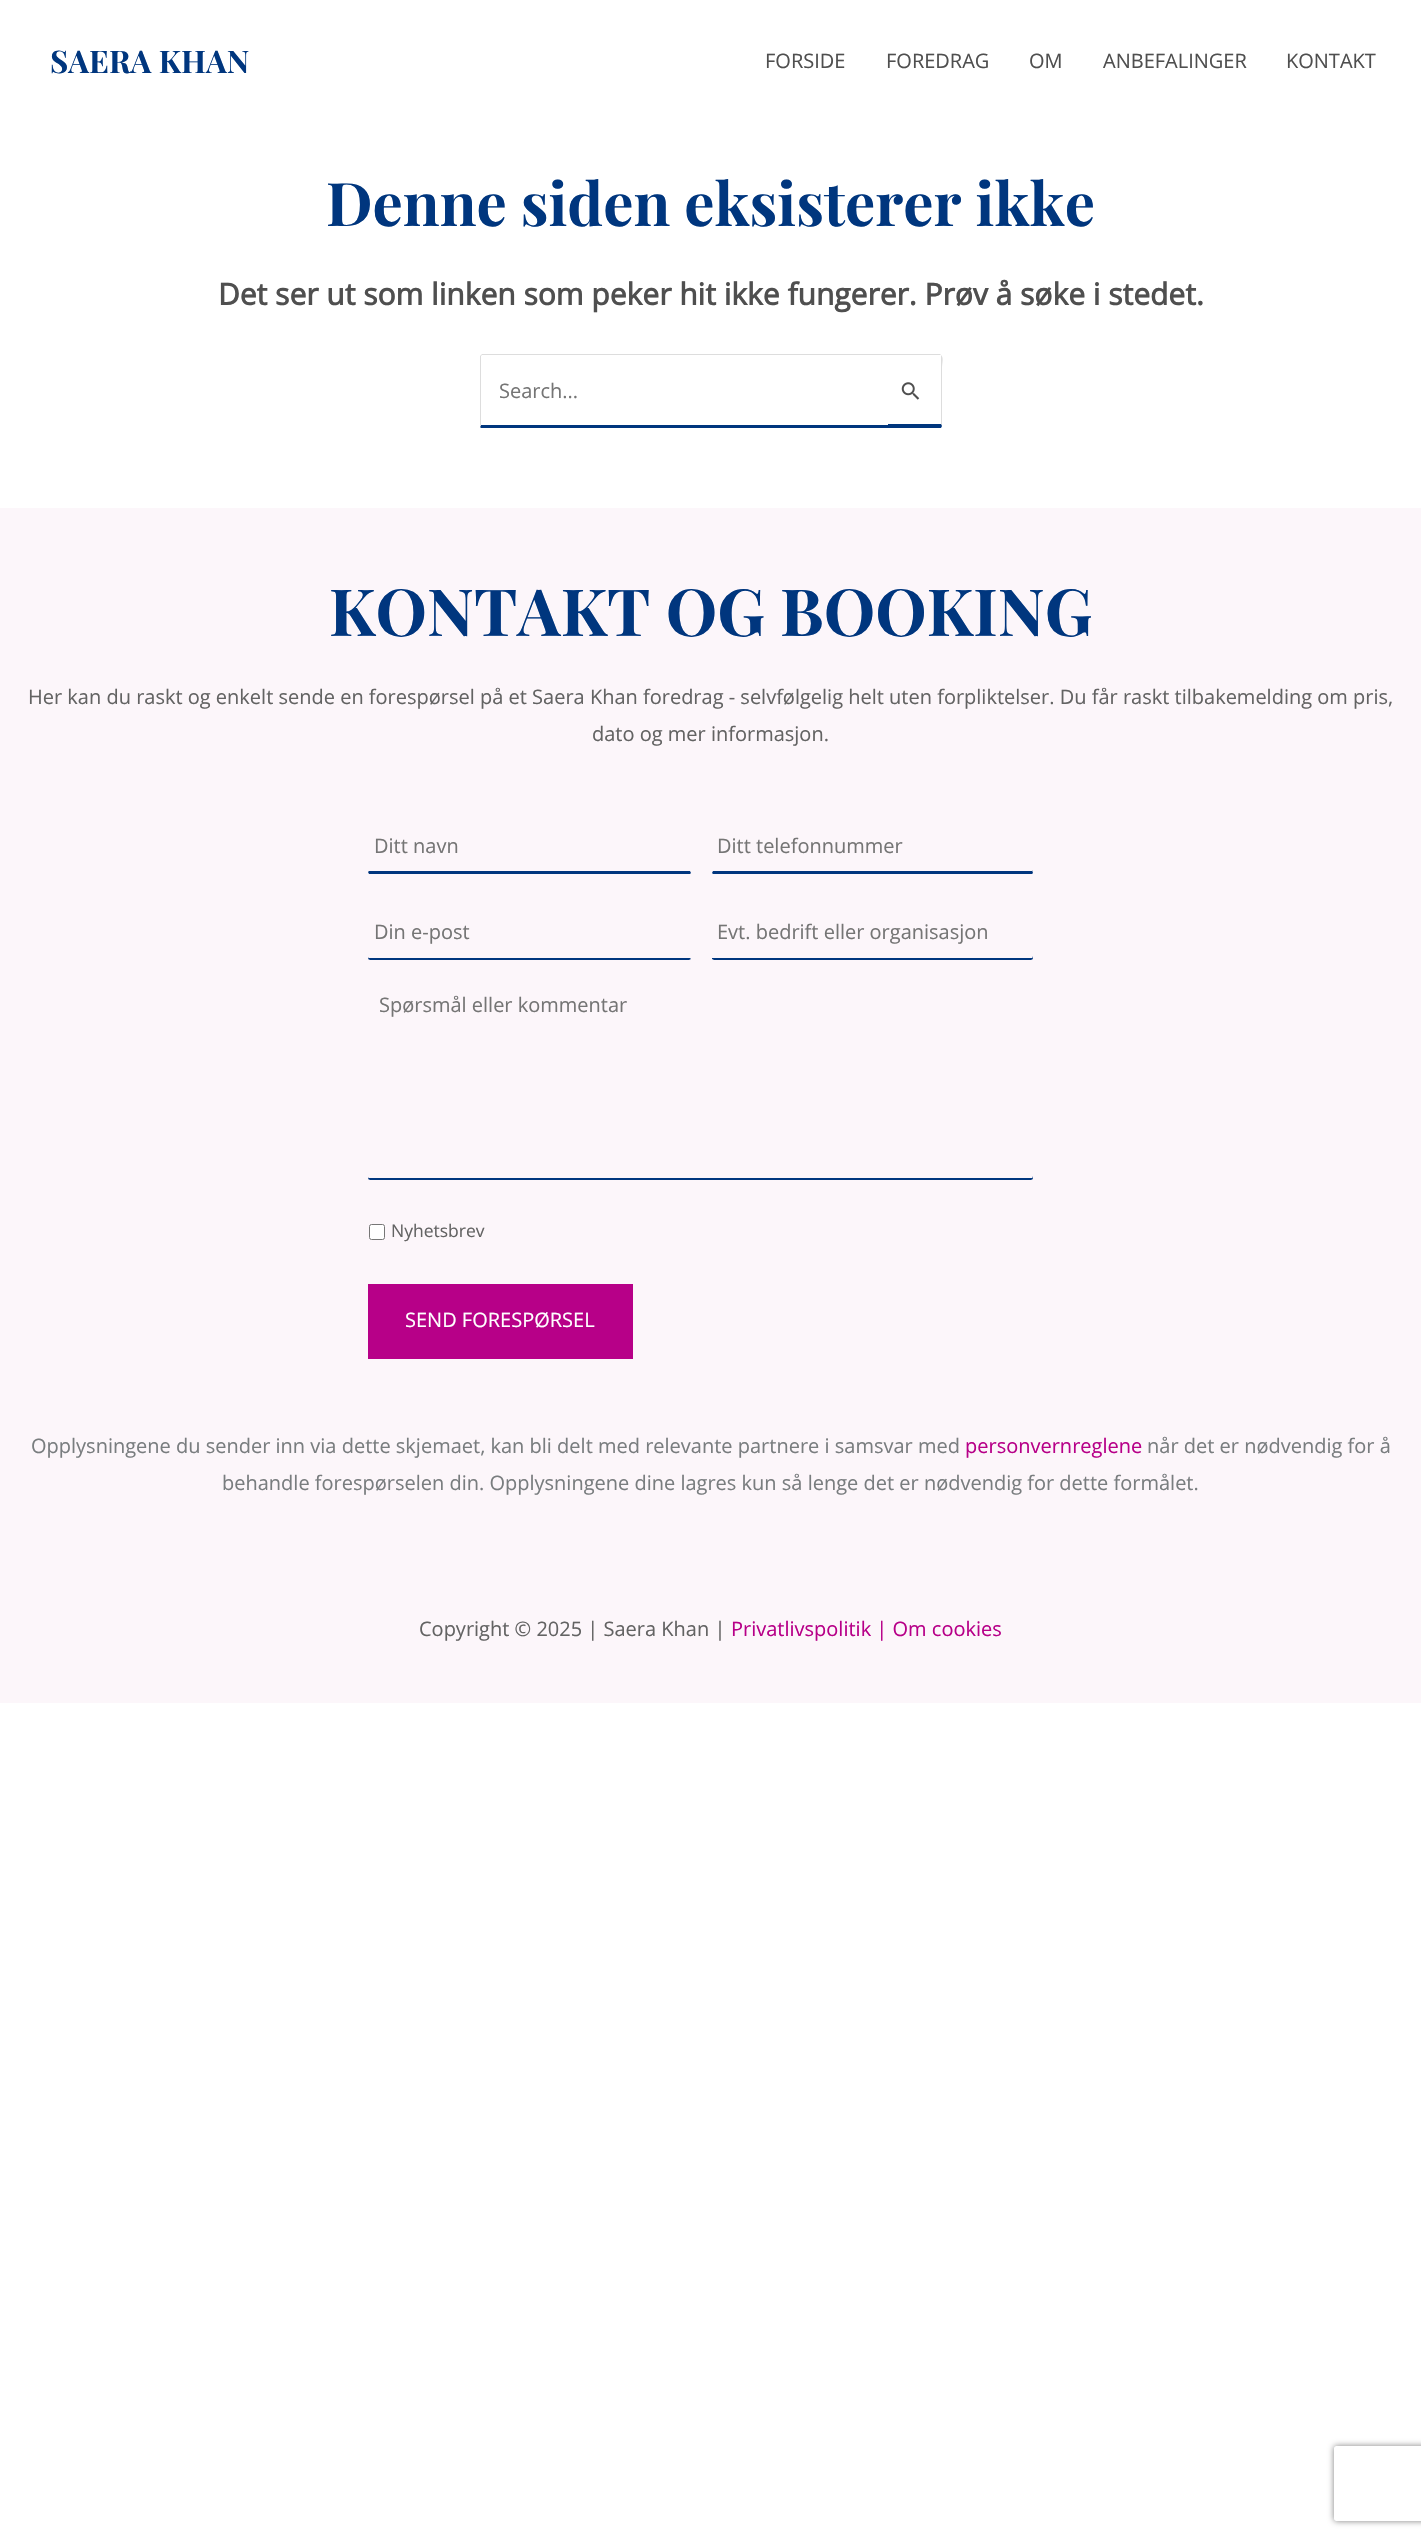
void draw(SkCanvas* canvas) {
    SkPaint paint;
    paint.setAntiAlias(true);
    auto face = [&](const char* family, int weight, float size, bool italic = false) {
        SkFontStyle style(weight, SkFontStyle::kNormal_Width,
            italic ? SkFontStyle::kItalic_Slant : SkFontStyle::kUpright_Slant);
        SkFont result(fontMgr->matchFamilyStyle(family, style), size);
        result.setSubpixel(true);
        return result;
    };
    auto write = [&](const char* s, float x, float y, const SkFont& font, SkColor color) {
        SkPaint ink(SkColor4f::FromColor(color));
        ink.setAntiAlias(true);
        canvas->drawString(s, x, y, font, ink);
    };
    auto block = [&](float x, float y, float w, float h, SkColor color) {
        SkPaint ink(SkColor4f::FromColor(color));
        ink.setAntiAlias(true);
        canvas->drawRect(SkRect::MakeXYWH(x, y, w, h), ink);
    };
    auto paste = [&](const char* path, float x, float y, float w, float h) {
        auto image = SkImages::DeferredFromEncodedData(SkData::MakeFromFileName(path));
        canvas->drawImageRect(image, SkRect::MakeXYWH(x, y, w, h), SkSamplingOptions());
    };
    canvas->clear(SK_ColorWHITE);
    auto kFont1 = face("Playfair Display", 700, 31.25f);
    write("SAERA KHAN", 50, 73, kFont1, SkColorSetRGB(0, 54, 126));
    auto kFont2 = face("Open Sans", 400, 20);
    write("FORSIDE", 765, 68, kFont2, SkColorSetRGB(79, 79, 79));
    write("FOREDRAG", 886, 68, kFont2, SkColorSetRGB(79, 79, 79));
    write("OM", 1029, 68, kFont2, SkColorSetRGB(79, 79, 79));
    write("ANBEFALINGER", 1103, 68, kFont2, SkColorSetRGB(79, 79, 79));
    write("KONTAKT", 1286, 68, kFont2, SkColorSetRGB(79, 79, 79));
    auto kFont3 = face("Playfair Display", 700, 60);
    write("Denne siden eksisterer ikke", 326, 226, kFont3, SkColorSetRGB(0, 54, 126));
    auto kFont4 = face("Open Sans", 700, 30);
    write("Det ser ut som linken som peker hit ikke fungerer. Prøv å søke i stedet.", 218, 305, kFont4, SkColorSetRGB(79, 79, 79));
    paint.setColor(SkColorSetRGB(221, 221, 221));
    canvas->drawPath(SkPathBuilder().moveTo(482, 354).lineTo(481, 355).lineTo(482, 355).lineTo(940, 355).lineTo(941, 355).lineTo(940, 354).close().detach(), paint);
    canvas->drawPath(SkPathBuilder().moveTo(942, 426).lineTo(942, 368).cubicTo(942, 363, 944, 358, 941, 355).lineTo(941, 424).close().detach(), paint);
    paint.setColor(SkColorSetRGB(0, 54, 126));
    canvas->drawPath(SkPathBuilder().moveTo(481, 428).lineTo(480, 427).lineTo(481, 425).lineTo(941, 425).lineTo(941, 424).lineTo(942, 426).lineTo(941, 428).close().detach(), paint);
    paint.setColor(SkColorSetRGB(221, 221, 221));
    canvas->drawPath(SkPathBuilder().moveTo(480, 356).lineTo(480, 425).lineTo(480, 427).lineTo(481, 425).lineTo(481, 356).lineTo(482, 355).lineTo(481, 355).close().detach(), paint);
    write("Search...", 499, 398, kFont2, SkColorSetRGB(117, 117, 117));
    paste("pic1.png", 901, 382, 19, 18);
    block(888, 424, 53, 1, SkColorSetRGB(0, 54, 126));
    block(0, 508, 1421, 1195, SkColorSetRGB(252, 246, 250));
    auto kFont5 = face("Playfair Display", 700, 65);
    write("KONTAKT OG BOOKING", 329, 636, kFont5, SkColorSetRGB(0, 54, 126));
    write("Her kan du raskt og enkelt sende en forespørsel på et Saera Khan foredrag - selvfølgelig helt uten forpliktelser. Du får raskt tilbakemelding om pris,", 28, 704, kFont2, SkColorSetRGB(99, 99, 99));
    write("dato og mer informasjon.", 592, 741, kFont2, SkColorSetRGB(99, 99, 99));
    paint.setColor(SkColorSetRGB(0, 54, 126));
    canvas->drawPath(SkPathBuilder().moveTo(369, 874).lineTo(368, 872).lineTo(369, 871).lineTo(690, 871).lineTo(691, 873).lineTo(690, 874).close().detach(), paint);
    write("Ditt navn", 374, 853, kFont2, SkColorSetRGB(117, 117, 117));
    canvas->drawPath(SkPathBuilder().moveTo(713, 874).lineTo(712, 873).lineTo(713, 871).lineTo(1032, 871).lineTo(1032, 870).lineTo(1033, 873).lineTo(1032, 874).close().detach(), paint);
    write("Ditt telefonnummer", 717, 853, kFont2, SkColorSetRGB(117, 117, 117));
    canvas->drawPath(SkPathBuilder().moveTo(370, 960).lineTo(689, 960).lineTo(691, 959).lineTo(690, 958).lineTo(369, 958).lineTo(369, 957).lineTo(368, 959).close().detach(), paint);
    write("Din e-post", 374, 939, kFont2, SkColorSetRGB(117, 117, 117));
    canvas->drawPath(SkPathBuilder().moveTo(714, 960).lineTo(1031, 960).lineTo(1033, 959).lineTo(1032, 956).lineTo(1032, 958).lineTo(712, 958).lineTo(712, 959).close().detach(), paint);
    write("Evt. bedrift eller organisasjon", 717, 939, kFont2, SkColorSetRGB(117, 117, 117));
    canvas->drawPath(SkPathBuilder().moveTo(370, 1180).lineTo(1031, 1180).lineTo(1033, 1179).lineTo(1032, 1176).lineTo(1032, 1178).lineTo(369, 1178).lineTo(369, 1177).lineTo(368, 1179).close().detach(), paint);
    write("Spørsmål eller kommentar", 379, 1012, kFont2, SkColorSetRGB(117, 117, 117));
    paint.setColor(SK_ColorWHITE);
    canvas->drawRoundRect(SkRect::MakeXYWH(369.5f, 1224.5f, 15, 15), 2, 2, paint);
    paint.setStyle(SkPaint::kStroke_Style);
    paint.setStrokeWidth(1);
    paint.setColor(SkColorSetRGB(118, 118, 118));
    canvas->drawRoundRect(SkRect::MakeXYWH(369.5f, 1224.5f, 15, 15), 2, 2, paint);
    auto kFont6 = face("Open Sans", 400, 17.5f);
    write("Nyhetsbrev", 391, 1237, kFont6, SkColorSetRGB(99, 99, 99));
    block(368, 1284, 265, 75, SkColorSetRGB(183, 0, 136));
    write("SEND FORESPØRSEL", 405, 1327, kFont2, SK_ColorWHITE);
    write("Opplysningene du sender inn via dette skjemaet, kan bli delt med relevante partnere i samsvar med", 31, 1453, kFont2, SkColorSetRGB(121, 125, 127));
    write("personvernreglene", 965, 1453, kFont2, SkColorSetRGB(183, 0, 136));
    write("når det er nødvendig for å", 1147, 1453, kFont2, SkColorSetRGB(121, 125, 127));
    write("behandle forespørselen din. Opplysningene dine lagres kun så lenge det er nødvendig for dette formålet.", 222, 1490, kFont2, SkColorSetRGB(121, 125, 127));
    write("Copyright © 2025 | Saera Khan |", 419, 1636, kFont2, SkColorSetRGB(99, 99, 99));
    write("Privatlivspolitik | Om cookies", 731, 1636, kFont2, SkColorSetRGB(183, 0, 136));
    canvas->save();
    canvas->clipPath(SkPathBuilder(SkPathFillType::kEvenOdd).moveTo(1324, 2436).lineTo(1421, 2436).lineTo(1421, 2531).lineTo(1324, 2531).close().moveTo(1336.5f, 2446).lineTo(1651.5f, 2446).cubicTo(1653, 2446, 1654, 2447, 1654, 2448.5f).lineTo(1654, 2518.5f).cubicTo(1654, 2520, 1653, 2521, 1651.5f, 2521).lineTo(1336.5f, 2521).cubicTo(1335, 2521, 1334, 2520, 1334, 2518.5f).lineTo(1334, 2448.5f).cubicTo(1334, 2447, 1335, 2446, 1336.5f, 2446).close().detach(), true);
    paint.setStyle(SkPaint::kFill_Style);
    paint.setColor(SkColorSetRGB(128, 128, 128));
    paint.setMaskFilter(SkMaskFilter::MakeBlur(kNormal_SkBlurStyle, 3));
    canvas->drawRoundRect(SkRect::MakeXYWH(1334, 2446, 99, 75), 2.5f, 2.5f, paint);
    paint.setMaskFilter(nullptr);
    canvas->restore();
}
